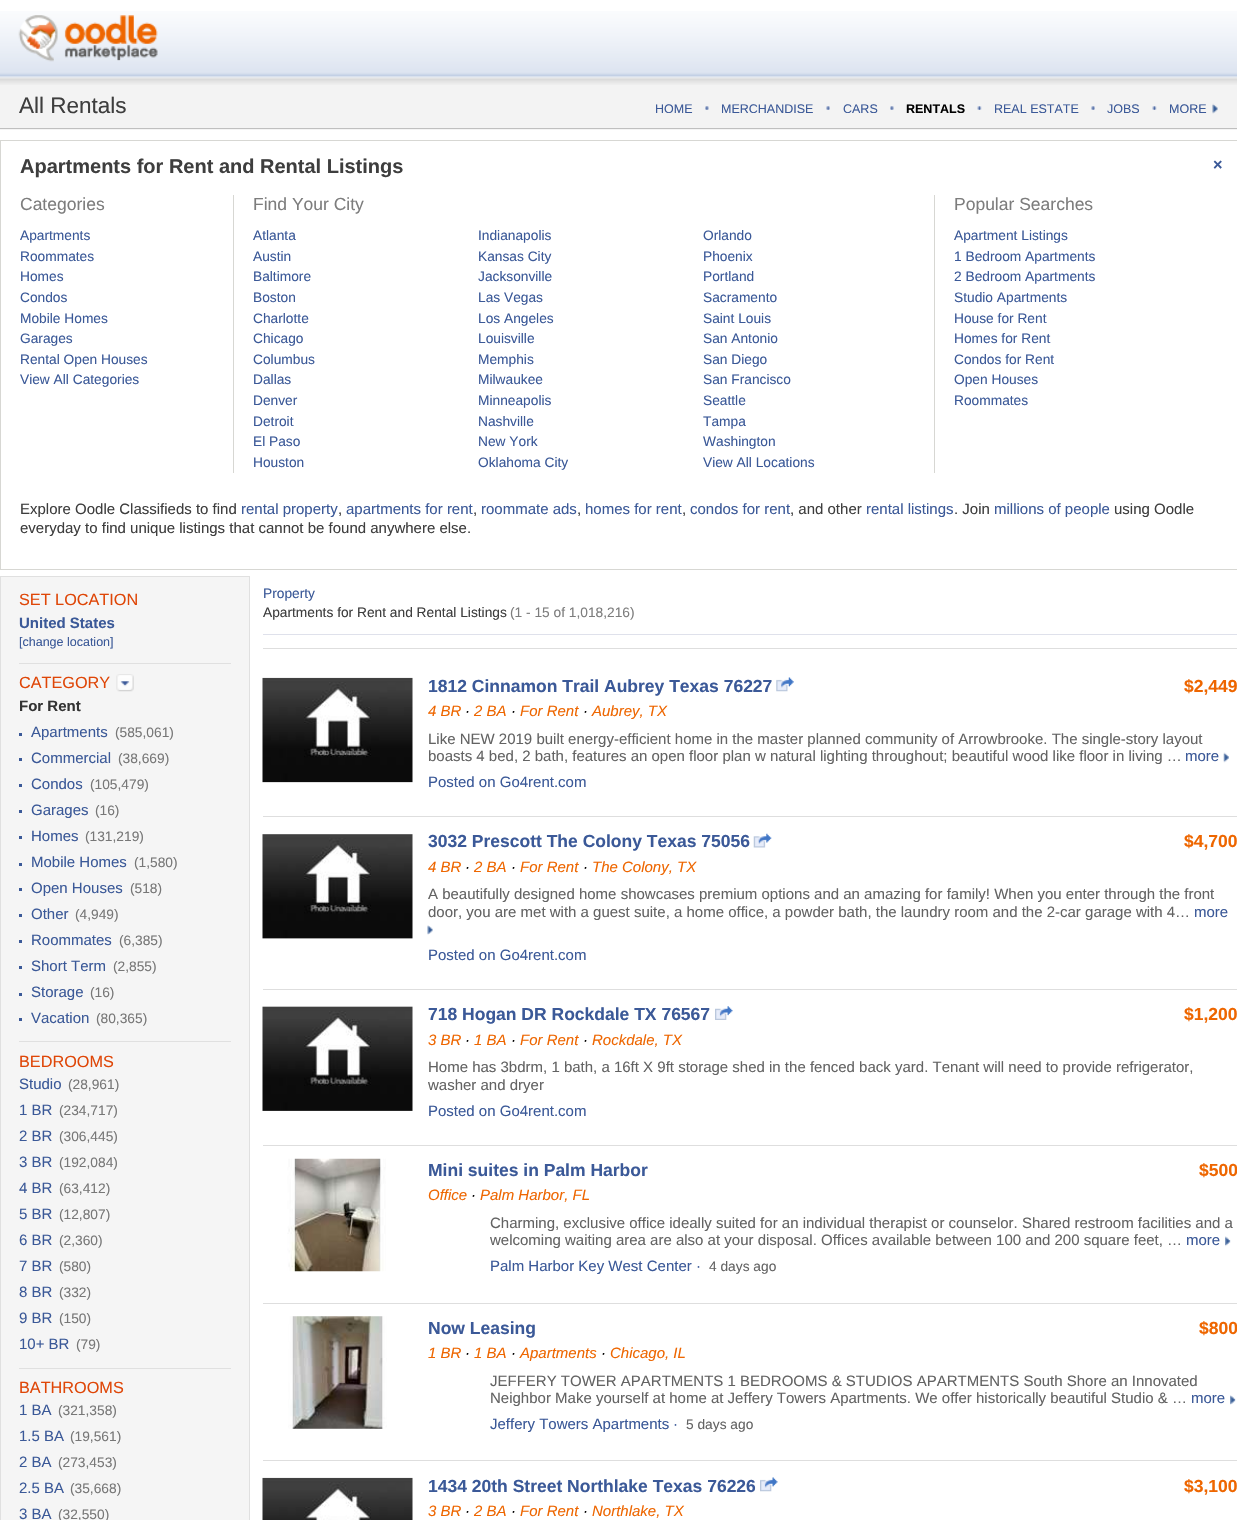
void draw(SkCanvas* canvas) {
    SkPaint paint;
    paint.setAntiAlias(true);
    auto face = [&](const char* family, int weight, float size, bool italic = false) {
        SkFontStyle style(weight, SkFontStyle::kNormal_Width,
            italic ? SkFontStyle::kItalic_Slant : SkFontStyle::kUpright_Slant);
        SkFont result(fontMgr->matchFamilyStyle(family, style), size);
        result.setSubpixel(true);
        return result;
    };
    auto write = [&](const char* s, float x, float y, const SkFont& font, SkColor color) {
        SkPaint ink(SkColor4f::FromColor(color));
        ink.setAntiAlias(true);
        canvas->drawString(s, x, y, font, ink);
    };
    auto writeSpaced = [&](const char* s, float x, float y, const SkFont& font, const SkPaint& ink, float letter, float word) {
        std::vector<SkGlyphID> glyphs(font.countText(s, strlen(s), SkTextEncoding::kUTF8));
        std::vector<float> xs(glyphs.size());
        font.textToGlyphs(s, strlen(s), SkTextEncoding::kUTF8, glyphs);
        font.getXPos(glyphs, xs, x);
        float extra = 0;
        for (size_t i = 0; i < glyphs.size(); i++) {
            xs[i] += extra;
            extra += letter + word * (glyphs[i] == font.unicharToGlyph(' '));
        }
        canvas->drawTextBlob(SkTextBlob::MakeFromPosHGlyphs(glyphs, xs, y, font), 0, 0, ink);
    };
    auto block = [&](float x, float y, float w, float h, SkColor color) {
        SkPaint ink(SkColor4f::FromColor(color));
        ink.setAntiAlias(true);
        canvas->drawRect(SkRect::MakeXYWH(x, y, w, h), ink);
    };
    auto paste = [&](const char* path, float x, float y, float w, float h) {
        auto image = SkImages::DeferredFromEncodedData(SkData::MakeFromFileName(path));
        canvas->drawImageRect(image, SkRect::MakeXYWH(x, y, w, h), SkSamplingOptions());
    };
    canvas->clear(SK_ColorWHITE);
    paint.setColor(SkColorSetRGB(191, 191, 191));
    paint.setMaskFilter(SkMaskFilter::MakeBlur(kNormal_SkBlurStyle, 0.5f));
    canvas->drawRect(SkRect::MakeXYWH(0, 70, 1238, 59), paint);
    paint.setMaskFilter(nullptr);
    block(0, 77, 1237, 51, SkColorSetRGB(243, 243, 243));
    paste("pic1.png", 0, 11, 1237, 74);
    paste("pic2.png", 18, 15, 140, 47);
    auto kFont1 = face("Liberation Sans", 400, 22.5f);
    write("All Rentals", 19, 113, kFont1, SkColorSetRGB(62, 62, 62));
    auto kFont2 = face("Liberation Sans", 400, 12.5f);
    write("HOME", 655, 113, kFont2, SkColorSetRGB(59, 89, 152));
    paste("pic3.png", 705, 106, 4, 4);
    write("MERCHANDISE", 721, 113, kFont2, SkColorSetRGB(59, 89, 152));
    paste("pic4.png", 826, 106, 4, 4);
    write("CARS", 843, 113, kFont2, SkColorSetRGB(59, 89, 152));
    paste("pic5.png", 890, 106, 4, 4);
    auto kFont3 = face("Liberation Sans", 700, 12.5f);
    write("RENTALS", 906, 113, kFont3, SK_ColorBLACK);
    paste("pic6.png", 977, 106, 5, 4);
    write("REAL ESTATE", 994, 113, kFont2, SkColorSetRGB(59, 89, 152));
    paste("pic4.png", 1091, 106, 4, 4);
    write("JOBS", 1107, 113, kFont2, SkColorSetRGB(59, 89, 152));
    paste("pic6.png", 1152, 106, 5, 4);
    write("MORE", 1169, 113, kFont2, SkColorSetRGB(59, 89, 152));
    paste("pic7.png", 1212, 103, 6, 11);
    paint.setStyle(SkPaint::kStroke_Style);
    paint.setStrokeWidth(1);
    paint.setColor(SkColorSetRGB(215, 215, 211));
    canvas->drawRect(SkRect::MakeXYWH(0.5f, 140.5f, 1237, 429), paint);
    auto kFont4 = face("Liberation Sans", 700, 20);
    write("Apartments for Rent and Rental Listings", 20, 173, kFont4, SkColorSetRGB(62, 62, 62));
    auto kFont5 = face("Liberation Sans", 700, 16.25f);
    write("×", 1213, 170, kFont5, SkColorSetRGB(59, 89, 152));
    auto kFont6 = face("Liberation Sans", 400, 17.5f);
    write("Categories", 20, 210, kFont6, SkColorSetRGB(125, 125, 125));
    auto kFont7 = face("Liberation Sans", 400, 13.75f);
    write("Apartments", 20, 240, kFont7, SkColorSetRGB(59, 89, 152));
    write("Roommates", 20, 261, kFont7, SkColorSetRGB(59, 89, 152));
    write("Homes", 20, 281, kFont7, SkColorSetRGB(59, 89, 152));
    write("Condos", 20, 302, kFont7, SkColorSetRGB(59, 89, 152));
    write("Mobile Homes", 20, 323, kFont7, SkColorSetRGB(59, 89, 152));
    write("Garages", 20, 343, kFont7, SkColorSetRGB(59, 89, 152));
    write("Rental Open Houses", 20, 364, kFont7, SkColorSetRGB(59, 89, 152));
    write("View All Categories", 20, 384, kFont7, SkColorSetRGB(59, 89, 152));
    block(934, 195, 1, 278, SkColorSetRGB(215, 215, 211));
    block(233, 195, 1, 278, SkColorSetRGB(215, 215, 211));
    write("Find Your City", 253, 210, kFont6, SkColorSetRGB(125, 125, 125));
    write("Atlanta", 253, 240, kFont7, SkColorSetRGB(59, 89, 152));
    write("Austin", 253, 261, kFont7, SkColorSetRGB(59, 89, 152));
    write("Baltimore", 253, 281, kFont7, SkColorSetRGB(59, 89, 152));
    write("Boston", 253, 302, kFont7, SkColorSetRGB(59, 89, 152));
    write("Charlotte", 253, 323, kFont7, SkColorSetRGB(59, 89, 152));
    write("Chicago", 253, 343, kFont7, SkColorSetRGB(59, 89, 152));
    write("Columbus", 253, 364, kFont7, SkColorSetRGB(59, 89, 152));
    write("Dallas", 253, 384, kFont7, SkColorSetRGB(59, 89, 152));
    write("Denver", 253, 405, kFont7, SkColorSetRGB(59, 89, 152));
    write("Detroit", 253, 426, kFont7, SkColorSetRGB(59, 89, 152));
    write("El Paso", 253, 446, kFont7, SkColorSetRGB(59, 89, 152));
    write("Houston", 253, 467, kFont7, SkColorSetRGB(59, 89, 152));
    write("Indianapolis", 478, 240, kFont7, SkColorSetRGB(59, 89, 152));
    write("Kansas City", 478, 261, kFont7, SkColorSetRGB(59, 89, 152));
    write("Jacksonville", 478, 281, kFont7, SkColorSetRGB(59, 89, 152));
    write("Las Vegas", 478, 302, kFont7, SkColorSetRGB(59, 89, 152));
    write("Los Angeles", 478, 323, kFont7, SkColorSetRGB(59, 89, 152));
    write("Louisville", 478, 343, kFont7, SkColorSetRGB(59, 89, 152));
    write("Memphis", 478, 364, kFont7, SkColorSetRGB(59, 89, 152));
    write("Milwaukee", 478, 384, kFont7, SkColorSetRGB(59, 89, 152));
    write("Minneapolis", 478, 405, kFont7, SkColorSetRGB(59, 89, 152));
    write("Nashville", 478, 426, kFont7, SkColorSetRGB(59, 89, 152));
    write("New York", 478, 446, kFont7, SkColorSetRGB(59, 89, 152));
    write("Oklahoma City", 478, 467, kFont7, SkColorSetRGB(59, 89, 152));
    write("Orlando", 703, 240, kFont7, SkColorSetRGB(59, 89, 152));
    write("Phoenix", 703, 261, kFont7, SkColorSetRGB(59, 89, 152));
    write("Portland", 703, 281, kFont7, SkColorSetRGB(59, 89, 152));
    write("Sacramento", 703, 302, kFont7, SkColorSetRGB(59, 89, 152));
    write("Saint Louis", 703, 323, kFont7, SkColorSetRGB(59, 89, 152));
    write("San Antonio", 703, 343, kFont7, SkColorSetRGB(59, 89, 152));
    write("San Diego", 703, 364, kFont7, SkColorSetRGB(59, 89, 152));
    write("San Francisco", 703, 384, kFont7, SkColorSetRGB(59, 89, 152));
    write("Seattle", 703, 405, kFont7, SkColorSetRGB(59, 89, 152));
    write("Tampa", 703, 426, kFont7, SkColorSetRGB(59, 89, 152));
    write("Washington", 703, 446, kFont7, SkColorSetRGB(59, 89, 152));
    write("View All Locations", 703, 467, kFont7, SkColorSetRGB(59, 89, 152));
    write("Popular Searches", 954, 210, kFont6, SkColorSetRGB(125, 125, 125));
    write("Apartment Listings", 954, 240, kFont7, SkColorSetRGB(59, 89, 152));
    write("1 Bedroom Apartments", 954, 261, kFont7, SkColorSetRGB(59, 89, 152));
    write("2 Bedroom Apartments", 954, 281, kFont7, SkColorSetRGB(59, 89, 152));
    write("Studio Apartments", 954, 302, kFont7, SkColorSetRGB(59, 89, 152));
    write("House for Rent", 954, 323, kFont7, SkColorSetRGB(59, 89, 152));
    write("Homes for Rent", 954, 343, kFont7, SkColorSetRGB(59, 89, 152));
    write("Condos for Rent", 954, 364, kFont7, SkColorSetRGB(59, 89, 152));
    write("Open Houses", 954, 384, kFont7, SkColorSetRGB(59, 89, 152));
    write("Roommates", 954, 405, kFont7, SkColorSetRGB(59, 89, 152));
    auto kFont8 = face("Liberation Sans", 400, 15);
    write("Explore Oodle Classifieds to find", 20, 514, kFont8, SkColorSetRGB(62, 62, 62));
    write("rental property", 241, 514, kFont8, SkColorSetRGB(59, 89, 152));
    write(",", 338, 514, kFont8, SkColorSetRGB(62, 62, 62));
    write("apartments for rent", 346, 514, kFont8, SkColorSetRGB(59, 89, 152));
    write(",", 473, 514, kFont8, SkColorSetRGB(62, 62, 62));
    write("roommate ads", 481, 514, kFont8, SkColorSetRGB(59, 89, 152));
    write(",", 577, 514, kFont8, SkColorSetRGB(62, 62, 62));
    write("homes for rent", 585, 514, kFont8, SkColorSetRGB(59, 89, 152));
    write(",", 682, 514, kFont8, SkColorSetRGB(62, 62, 62));
    write("condos for rent", 690, 514, kFont8, SkColorSetRGB(59, 89, 152));
    write(", and other", 790, 514, kFont8, SkColorSetRGB(62, 62, 62));
    write("rental listings", 866, 514, kFont8, SkColorSetRGB(59, 89, 152));
    write(". Join", 954, 514, kFont8, SkColorSetRGB(62, 62, 62));
    write("millions of people", 994, 514, kFont8, SkColorSetRGB(59, 89, 152));
    write("using Oodle", 1114, 514, kFont8, SkColorSetRGB(62, 62, 62));
    write("everyday to find unique listings that cannot be found anywhere else.", 20, 533, kFont8, SkColorSetRGB(62, 62, 62));
    paint.setStyle(SkPaint::kFill_Style);
    paint.setColor(SkColorSetRGB(245, 245, 245));
    canvas->drawRect(SkRect::MakeXYWH(0.5f, 576.5f, 249, 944), paint);
    paint.setStyle(SkPaint::kStroke_Style);
    paint.setColor(SkColorSetRGB(224, 224, 224));
    canvas->drawRect(SkRect::MakeXYWH(0.5f, 576.5f, 249, 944), paint);
    auto kFont9 = face("Liberation Sans", 400, 16.25f);
    write("SET LOCATION", 19, 605, kFont9, SkColorSetRGB(223, 70, 7));
    auto kFont10 = face("Liberation Sans", 700, 15);
    write("United States", 19, 628, kFont10, SkColorSetRGB(59, 89, 152));
    write("[change location]", 19, 646, kFont2, SkColorSetRGB(59, 89, 152));
    block(19, 663, 212, 1, SkColorSetRGB(224, 224, 224));
    write("CATEGORY", 19, 688, kFont9, SkColorSetRGB(223, 70, 7));
    paste("pic8.png", 116, 674, 18, 18);
    write("For Rent", 19, 711, kFont10, SkColorSetRGB(51, 51, 51));
    block(19, 733, 3, 3, SkColorSetRGB(59, 89, 152));
    write("Apartments", 31, 737, kFont8, SkColorSetRGB(59, 89, 152));
    write("(585,061)", 115, 737, kFont7, SkColorSetRGB(119, 119, 119));
    block(19, 758, 3, 3, SkColorSetRGB(59, 89, 152));
    write("Commercial", 31, 763, kFont8, SkColorSetRGB(59, 89, 152));
    write("(38,669)", 118, 763, kFont7, SkColorSetRGB(119, 119, 119));
    block(19, 784, 3, 3, SkColorSetRGB(59, 89, 152));
    write("Condos", 31, 789, kFont8, SkColorSetRGB(59, 89, 152));
    write("(105,479)", 90, 789, kFont7, SkColorSetRGB(119, 119, 119));
    block(19, 810, 3, 3, SkColorSetRGB(59, 89, 152));
    write("Garages", 31, 815, kFont8, SkColorSetRGB(59, 89, 152));
    write("(16)", 95, 815, kFont7, SkColorSetRGB(119, 119, 119));
    block(19, 836, 3, 3, SkColorSetRGB(59, 89, 152));
    write("Homes", 31, 841, kFont8, SkColorSetRGB(59, 89, 152));
    write("(131,219)", 85, 841, kFont7, SkColorSetRGB(119, 119, 119));
    block(19, 863, 3, 3, SkColorSetRGB(59, 89, 152));
    write("Mobile Homes", 31, 867, kFont8, SkColorSetRGB(59, 89, 152));
    write("(1,580)", 134, 867, kFont7, SkColorSetRGB(119, 119, 119));
    block(19, 888, 3, 3, SkColorSetRGB(59, 89, 152));
    write("Open Houses", 31, 893, kFont8, SkColorSetRGB(59, 89, 152));
    write("(518)", 130, 893, kFont7, SkColorSetRGB(119, 119, 119));
    block(19, 914, 3, 3, SkColorSetRGB(59, 89, 152));
    write("Other", 31, 919, kFont8, SkColorSetRGB(59, 89, 152));
    write("(4,949)", 75, 919, kFont7, SkColorSetRGB(119, 119, 119));
    block(19, 940, 3, 3, SkColorSetRGB(59, 89, 152));
    write("Roommates", 31, 945, kFont8, SkColorSetRGB(59, 89, 152));
    write("(6,385)", 119, 945, kFont7, SkColorSetRGB(119, 119, 119));
    block(19, 966, 3, 3, SkColorSetRGB(59, 89, 152));
    write("Short Term", 31, 971, kFont8, SkColorSetRGB(59, 89, 152));
    write("(2,855)", 113, 971, kFont7, SkColorSetRGB(119, 119, 119));
    block(19, 993, 3, 3, SkColorSetRGB(59, 89, 152));
    write("Storage", 31, 997, kFont8, SkColorSetRGB(59, 89, 152));
    write("(16)", 90, 997, kFont7, SkColorSetRGB(119, 119, 119));
    block(19, 1018, 3, 3, SkColorSetRGB(59, 89, 152));
    write("Vacation", 31, 1023, kFont8, SkColorSetRGB(59, 89, 152));
    write("(80,365)", 96, 1023, kFont7, SkColorSetRGB(119, 119, 119));
    block(19, 1041, 212, 1, SkColorSetRGB(224, 224, 224));
    write("BEDROOMS", 19, 1067, kFont9, SkColorSetRGB(223, 70, 7));
    write("Studio", 19, 1089, kFont8, SkColorSetRGB(59, 89, 152));
    write("(28,961)", 68, 1089, kFont7, SkColorSetRGB(119, 119, 119));
    write("1 BR", 19, 1115, kFont8, SkColorSetRGB(59, 89, 152));
    write("(234,717)", 59, 1115, kFont7, SkColorSetRGB(119, 119, 119));
    write("2 BR", 19, 1141, kFont8, SkColorSetRGB(59, 89, 152));
    write("(306,445)", 59, 1141, kFont7, SkColorSetRGB(119, 119, 119));
    write("3 BR", 19, 1167, kFont8, SkColorSetRGB(59, 89, 152));
    write("(192,084)", 59, 1167, kFont7, SkColorSetRGB(119, 119, 119));
    write("4 BR", 19, 1193, kFont8, SkColorSetRGB(59, 89, 152));
    write("(63,412)", 59, 1193, kFont7, SkColorSetRGB(119, 119, 119));
    write("5 BR", 19, 1219, kFont8, SkColorSetRGB(59, 89, 152));
    write("(12,807)", 59, 1219, kFont7, SkColorSetRGB(119, 119, 119));
    write("6 BR", 19, 1245, kFont8, SkColorSetRGB(59, 89, 152));
    write("(2,360)", 59, 1245, kFont7, SkColorSetRGB(119, 119, 119));
    write("7 BR", 19, 1271, kFont8, SkColorSetRGB(59, 89, 152));
    write("(580)", 59, 1271, kFont7, SkColorSetRGB(119, 119, 119));
    write("8 BR", 19, 1297, kFont8, SkColorSetRGB(59, 89, 152));
    write("(332)", 59, 1297, kFont7, SkColorSetRGB(119, 119, 119));
    write("9 BR", 19, 1323, kFont8, SkColorSetRGB(59, 89, 152));
    write("(150)", 59, 1323, kFont7, SkColorSetRGB(119, 119, 119));
    write("10+ BR", 19, 1349, kFont8, SkColorSetRGB(59, 89, 152));
    write("(79)", 76, 1349, kFont7, SkColorSetRGB(119, 119, 119));
    block(19, 1368, 212, 1, SkColorSetRGB(224, 224, 224));
    write("BATHROOMS", 19, 1393, kFont9, SkColorSetRGB(223, 70, 7));
    write("1 BA", 19, 1415, kFont8, SkColorSetRGB(59, 89, 152));
    write("(321,358)", 58, 1415, kFont7, SkColorSetRGB(119, 119, 119));
    write("1.5 BA", 19, 1441, kFont8, SkColorSetRGB(59, 89, 152));
    write("(19,561)", 70, 1441, kFont7, SkColorSetRGB(119, 119, 119));
    write("2 BA", 19, 1467, kFont8, SkColorSetRGB(59, 89, 152));
    write("(273,453)", 58, 1467, kFont7, SkColorSetRGB(119, 119, 119));
    write("2.5 BA", 19, 1493, kFont8, SkColorSetRGB(59, 89, 152));
    write("(35,668)", 70, 1493, kFont7, SkColorSetRGB(119, 119, 119));
    write("3 BA", 19, 1519, kFont8, SkColorSetRGB(59, 89, 152));
    write("(32,550)", 58, 1519, kFont7, SkColorSetRGB(119, 119, 119));
    block(263, 634, 974, 1, SkColorSetRGB(223, 225, 235));
    write("Property", 263, 598, kFont7, SkColorSetRGB(59, 89, 152));
    write("Apartments for Rent and Rental Listings", 263, 617, kFont7, SkColorSetRGB(62, 62, 62));
    write("(1 - 15 of 1,018,216)", 510, 617, kFont7, SkColorSetRGB(125, 125, 125));
    block(263, 648, 974, 1, SkColorSetRGB(222, 222, 222));
    block(263, 816, 974, 1, SkColorSetRGB(222, 222, 222));
    paste("pic9.png", 262, 677, 151, 106);
    auto kFont11 = face("Liberation Sans", 700, 17.5f);
    write("1812 Cinnamon Trail Aubrey Texas 76227", 428, 692, kFont11, SkColorSetRGB(59, 89, 152));
    paste("pic10.png", 776, 677, 18, 15);
    write("$2,449", 1184, 692, kFont11, SkColorSetRGB(238, 102, 0));
    auto kFont12 = face("Liberation Sans", 400, 15, true);
    write("4 BR", 428, 716, kFont12, SkColorSetRGB(238, 102, 0));
    write("·", 465, 716, kFont12, SK_ColorBLACK);
    write("2 BA", 474, 716, kFont12, SkColorSetRGB(238, 102, 0));
    write("·", 511, 716, kFont12, SK_ColorBLACK);
    write("For Rent", 520, 716, kFont12, SkColorSetRGB(238, 102, 0));
    write("·", 583, 716, kFont12, SK_ColorBLACK);
    write("Aubrey, TX", 592, 716, kFont12, SkColorSetRGB(238, 102, 0));
    write("Like NEW 2019 built energy-efficient home in the master planned community of Arrowbrooke. The single-story layout", 428, 744, kFont8, SkColorSetRGB(99, 99, 99));
    write("boasts 4 bed, 2 bath, features an open floor plan w natural lighting throughout; beautiful wood like floor in living …", 428, 761, kFont8, SkColorSetRGB(99, 99, 99));
    write("more", 1185, 761, kFont8, SkColorSetRGB(59, 89, 152));
    paste("pic11.png", 1223, 752, 6, 11);
    write("Posted on Go4rent.com", 428, 787, kFont8, SkColorSetRGB(59, 89, 152));
    block(263, 989, 974, 1, SkColorSetRGB(222, 222, 222));
    paste("pic12.png", 262, 834, 151, 105);
    write("3032 Prescott The Colony Texas 75056", 428, 847, kFont11, SkColorSetRGB(59, 89, 152));
    paste("pic13.png", 753, 833, 19, 15);
    write("$4,700", 1184, 847, kFont11, SkColorSetRGB(238, 102, 0));
    write("4 BR", 428, 872, kFont12, SkColorSetRGB(238, 102, 0));
    write("·", 465, 872, kFont12, SK_ColorBLACK);
    write("2 BA", 474, 872, kFont12, SkColorSetRGB(238, 102, 0));
    write("·", 511, 872, kFont12, SK_ColorBLACK);
    write("For Rent", 520, 872, kFont12, SkColorSetRGB(238, 102, 0));
    write("·", 583, 872, kFont12, SK_ColorBLACK);
    write("The Colony, TX", 592, 872, kFont12, SkColorSetRGB(238, 102, 0));
    write("A beautifully designed home showcases premium options and an amazing for family! When you enter through the front", 428, 899, kFont8, SkColorSetRGB(99, 99, 99));
    write("door, you are met with a guest suite, a home office, a powder bath, the laundry room and the 2-car garage with 4…", 428, 917, kFont8, SkColorSetRGB(99, 99, 99));
    write("more", 1194, 917, kFont8, SkColorSetRGB(59, 89, 152));
    paste("pic14.png", 427, 925, 6, 10);
    write("Posted on Go4rent.com", 428, 960, kFont8, SkColorSetRGB(59, 89, 152));
    block(263, 1145, 974, 1, SkColorSetRGB(222, 222, 222));
    paste("pic15.png", 262, 1006, 151, 105);
    write("718 Hogan DR Rockdale TX 76567", 428, 1020, kFont11, SkColorSetRGB(59, 89, 152));
    paste("pic16.png", 715, 1006, 18, 14);
    write("$1,200", 1184, 1020, kFont11, SkColorSetRGB(238, 102, 0));
    write("3 BR", 428, 1045, kFont12, SkColorSetRGB(238, 102, 0));
    write("·", 465, 1045, kFont12, SK_ColorBLACK);
    write("1 BA", 474, 1045, kFont12, SkColorSetRGB(238, 102, 0));
    write("·", 511, 1045, kFont12, SK_ColorBLACK);
    write("For Rent", 520, 1045, kFont12, SkColorSetRGB(238, 102, 0));
    write("·", 583, 1045, kFont12, SK_ColorBLACK);
    write("Rockdale, TX", 592, 1045, kFont12, SkColorSetRGB(238, 102, 0));
    write("Home has 3bdrm, 1 bath, a 16ft X 9ft storage shed in the fenced back yard. Tenant will need to provide refrigerator,", 428, 1072, kFont8, SkColorSetRGB(99, 99, 99));
    write("washer and dryer", 428, 1090, kFont8, SkColorSetRGB(99, 99, 99));
    write("Posted on Go4rent.com", 428, 1116, kFont8, SkColorSetRGB(59, 89, 152));
    block(263, 1303, 974, 1, SkColorSetRGB(222, 222, 222));
    paste("pic17.png", 287, 1158, 99, 114);
    write("Mini suites in Palm Harbor", 428, 1176, kFont11, SkColorSetRGB(59, 89, 152));
    write("$500", 1199, 1176, kFont11, SkColorSetRGB(238, 102, 0));
    write("Office", 428, 1200, kFont12, SkColorSetRGB(238, 102, 0));
    write("·", 471, 1200, kFont12, SK_ColorBLACK);
    write("Palm Harbor, FL", 480, 1200, kFont12, SkColorSetRGB(238, 102, 0));
    write("Charming, exclusive office ideally suited for an individual therapist or counselor. Shared restroom facilities and a", 490, 1228, kFont8, SkColorSetRGB(99, 99, 99));
    write("welcoming waiting area are also at your disposal. Offices available between 100 and 200 square feet, …", 490, 1245, kFont8, SkColorSetRGB(99, 99, 99));
    write("more", 1186, 1245, kFont8, SkColorSetRGB(59, 89, 152));
    paste("pic18.png", 1225, 1236, 6, 11);
    write("Palm Harbor Key West Center", 490, 1271, kFont8, SkColorSetRGB(59, 89, 152));
    paint.setStyle(SkPaint::kFill_Style);
    paint.setColor(SkColorSetRGB(59, 89, 152));
    writeSpaced("·", 696, 1271, kFont8, paint, 4, 0);
    write("4 days ago", 709, 1271, kFont7, SkColorSetRGB(99, 99, 99));
    block(263, 1460, 974, 1, SkColorSetRGB(222, 222, 222));
    paste("pic19.png", 288, 1316, 99, 113);
    write("Now Leasing", 428, 1334, kFont11, SkColorSetRGB(59, 89, 152));
    write("$800", 1199, 1334, kFont11, SkColorSetRGB(238, 102, 0));
    write("1 BR", 428, 1358, kFont12, SkColorSetRGB(238, 102, 0));
    write("·", 465, 1358, kFont12, SK_ColorBLACK);
    write("1 BA", 474, 1358, kFont12, SkColorSetRGB(238, 102, 0));
    write("·", 511, 1358, kFont12, SK_ColorBLACK);
    write("Apartments", 520, 1358, kFont12, SkColorSetRGB(238, 102, 0));
    write("·", 601, 1358, kFont12, SK_ColorBLACK);
    write("Chicago, IL", 610, 1358, kFont12, SkColorSetRGB(238, 102, 0));
    write("JEFFERY TOWER APARTMENTS 1 BEDROOMS & STUDIOS APARTMENTS South Shore an Innovated", 490, 1386, kFont8, SkColorSetRGB(99, 99, 99));
    write("Neighbor Make yourself at home at Jeffery Towers Apartments. We offer historically beautiful Studio & …", 490, 1403, kFont8, SkColorSetRGB(99, 99, 99));
    write("more", 1191, 1403, kFont8, SkColorSetRGB(59, 89, 152));
    paste("pic20.png", 1230, 1395, 6, 10);
    write("Jeffery Towers Apartments", 490, 1429, kFont8, SkColorSetRGB(59, 89, 152));
    writeSpaced("·", 673, 1429, kFont8, paint, 4, 0);
    write("5 days ago", 686, 1429, kFont7, SkColorSetRGB(99, 99, 99));
    paste("pic21.png", 262, 1477, 151, 43);
    write("1434 20th Street Northlake Texas 76226", 428, 1492, kFont11, SkColorSetRGB(59, 89, 152));
    paste("pic22.png", 760, 1477, 18, 15);
    write("$3,100", 1184, 1492, kFont11, SkColorSetRGB(238, 102, 0));
    write("3 BR", 428, 1516, kFont12, SkColorSetRGB(238, 102, 0));
    write("·", 465, 1516, kFont12, SK_ColorBLACK);
    write("2 BA", 474, 1516, kFont12, SkColorSetRGB(238, 102, 0));
    write("·", 511, 1516, kFont12, SK_ColorBLACK);
    write("For Rent", 520, 1516, kFont12, SkColorSetRGB(238, 102, 0));
    write("·", 583, 1516, kFont12, SK_ColorBLACK);
    write("Northlake, TX", 592, 1516, kFont12, SkColorSetRGB(238, 102, 0));
}
